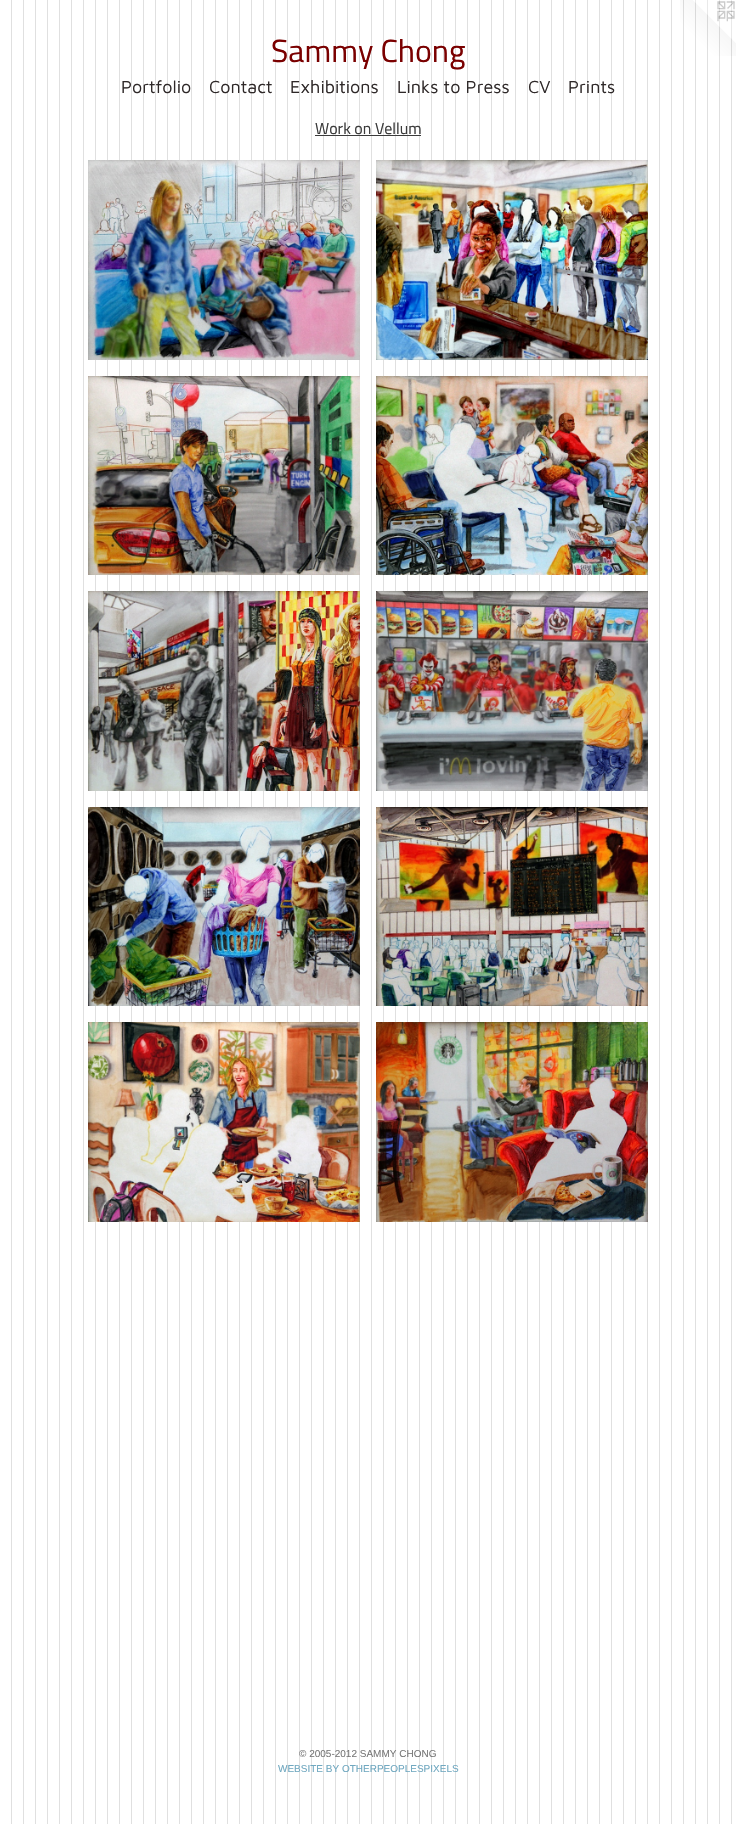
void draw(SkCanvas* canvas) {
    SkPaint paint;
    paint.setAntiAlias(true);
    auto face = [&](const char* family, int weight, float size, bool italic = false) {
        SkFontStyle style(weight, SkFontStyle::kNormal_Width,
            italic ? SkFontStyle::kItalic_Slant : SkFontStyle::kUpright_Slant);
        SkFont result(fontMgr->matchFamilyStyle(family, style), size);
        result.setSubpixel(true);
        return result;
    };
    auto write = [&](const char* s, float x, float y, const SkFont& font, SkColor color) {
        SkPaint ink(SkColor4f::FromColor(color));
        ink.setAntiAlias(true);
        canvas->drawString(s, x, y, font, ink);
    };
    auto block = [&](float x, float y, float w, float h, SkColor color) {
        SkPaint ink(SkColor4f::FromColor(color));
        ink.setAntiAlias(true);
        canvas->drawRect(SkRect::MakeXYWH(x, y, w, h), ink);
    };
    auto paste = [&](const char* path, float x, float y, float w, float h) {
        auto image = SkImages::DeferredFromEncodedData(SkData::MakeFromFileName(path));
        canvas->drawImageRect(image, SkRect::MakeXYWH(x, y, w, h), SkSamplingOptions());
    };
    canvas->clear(SK_ColorWHITE);
    paste("pic1.png", 11, 0, 721, 1824);
    auto kFont1 = face("Titillium Web", 400, 32);
    write("Sammy Chong", 271, 62, kFont1, SkColorSetRGB(122, 0, 0));
    paste("pic2.png", 680, 0, 56, 56);
    auto kFont2 = face("Maven Pro", 400, 18);
    write("Portfolio", 121, 93, kFont2, SkColorSetRGB(46, 40, 40));
    write("Contact", 209, 93, kFont2, SkColorSetRGB(46, 40, 40));
    write("Exhibitions", 290, 93, kFont2, SkColorSetRGB(46, 40, 40));
    write("Links to Press", 397, 93, kFont2, SkColorSetRGB(46, 40, 40));
    write("CV", 528, 93, kFont2, SkColorSetRGB(46, 40, 40));
    write("Prints", 568, 93, kFont2, SkColorSetRGB(46, 40, 40));
    auto kFont3 = face("Titillium Web", 400, 16);
    write("Work on Vellum", 315, 134, kFont3, SkColorSetRGB(59, 59, 59));
    block(315, 135, 106, 1, SkColorSetRGB(59, 59, 59));
    paste("pic3.png", 88, 160, 272, 200);
    paste("pic4.png", 376, 160, 272, 200);
    paste("pic5.png", 88, 376, 272, 199);
    paste("pic6.png", 376, 376, 272, 199);
    paste("pic7.png", 88, 591, 272, 200);
    paste("pic8.png", 376, 591, 272, 200);
    paste("pic9.png", 88, 807, 272, 199);
    paste("pic10.png", 376, 807, 272, 199);
    paste("pic11.png", 88, 1022, 272, 200);
    paste("pic12.png", 376, 1022, 272, 200);
    auto kFont4 = face("Liberation Sans", 400, 10);
    write("© 2005-2012 SAMMY CHONG", 299, 1757, kFont4, SkColorSetRGB(120, 120, 120));
    write("WEBSITE BY OTHERPEOPLESPIXELS", 278, 1772, kFont4, SkColorSetRGB(112, 168, 192));
}
